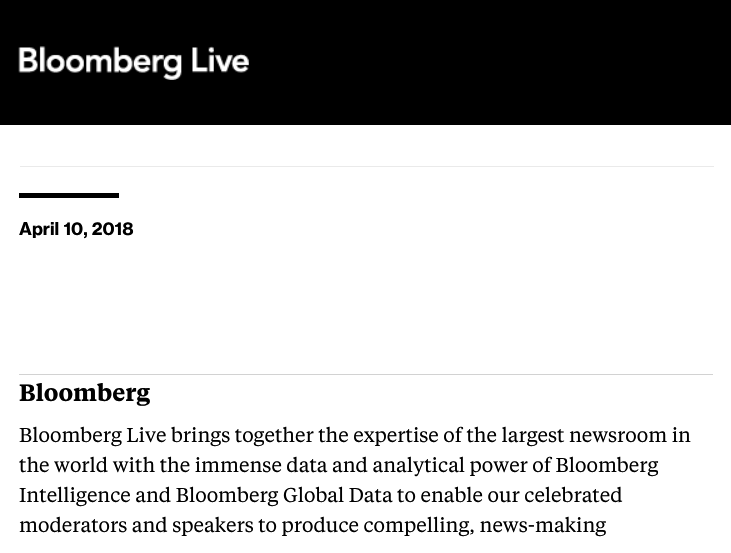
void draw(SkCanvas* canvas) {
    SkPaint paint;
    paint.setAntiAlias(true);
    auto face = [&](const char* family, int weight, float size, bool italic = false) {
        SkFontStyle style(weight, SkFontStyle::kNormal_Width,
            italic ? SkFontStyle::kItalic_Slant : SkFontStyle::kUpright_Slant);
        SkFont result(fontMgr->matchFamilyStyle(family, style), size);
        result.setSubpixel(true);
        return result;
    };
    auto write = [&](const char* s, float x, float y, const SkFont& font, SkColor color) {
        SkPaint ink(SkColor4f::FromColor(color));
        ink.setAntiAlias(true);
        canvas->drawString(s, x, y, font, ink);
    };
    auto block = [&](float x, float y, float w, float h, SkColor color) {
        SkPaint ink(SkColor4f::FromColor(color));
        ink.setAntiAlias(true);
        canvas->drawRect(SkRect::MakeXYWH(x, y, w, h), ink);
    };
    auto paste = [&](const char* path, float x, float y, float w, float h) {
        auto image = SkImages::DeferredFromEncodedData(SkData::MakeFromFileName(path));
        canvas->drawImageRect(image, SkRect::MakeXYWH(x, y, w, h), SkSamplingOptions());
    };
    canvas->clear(SK_ColorWHITE);
    block(0, 0, 731, 125, SK_ColorBLACK);
    paste("pic1.png", 18, 46, 231, 34);
    block(20, 166, 694, 1, SkColorSetRGB(234, 234, 234));
    block(19, 193, 100, 5, SK_ColorBLACK);
    auto kFont1 = face("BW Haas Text", 700, 17.5f);
    write("April 10, 2018", 19, 235, kFont1, SK_ColorBLACK);
    block(19, 374, 694, 1, SkColorSetRGB(210, 210, 210));
    auto kFont2 = face("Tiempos", 600, 23.5f);
    write("Bloomberg", 19, 401, kFont2, SK_ColorBLACK);
    auto kFont3 = face("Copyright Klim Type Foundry", 400, 20);
    write("Bloomberg Live brings together the expertise of the largest newsroom in", 19, 442, kFont3, SK_ColorBLACK);
    write("the world with the immense data and analytical power of Bloomberg", 19, 472, kFont3, SK_ColorBLACK);
    write("Intelligence and Bloomberg Global Data to enable our celebrated", 19, 502, kFont3, SK_ColorBLACK);
    write("moderators and speakers to produce compelling, news-making", 19, 532, kFont3, SK_ColorBLACK);
}
